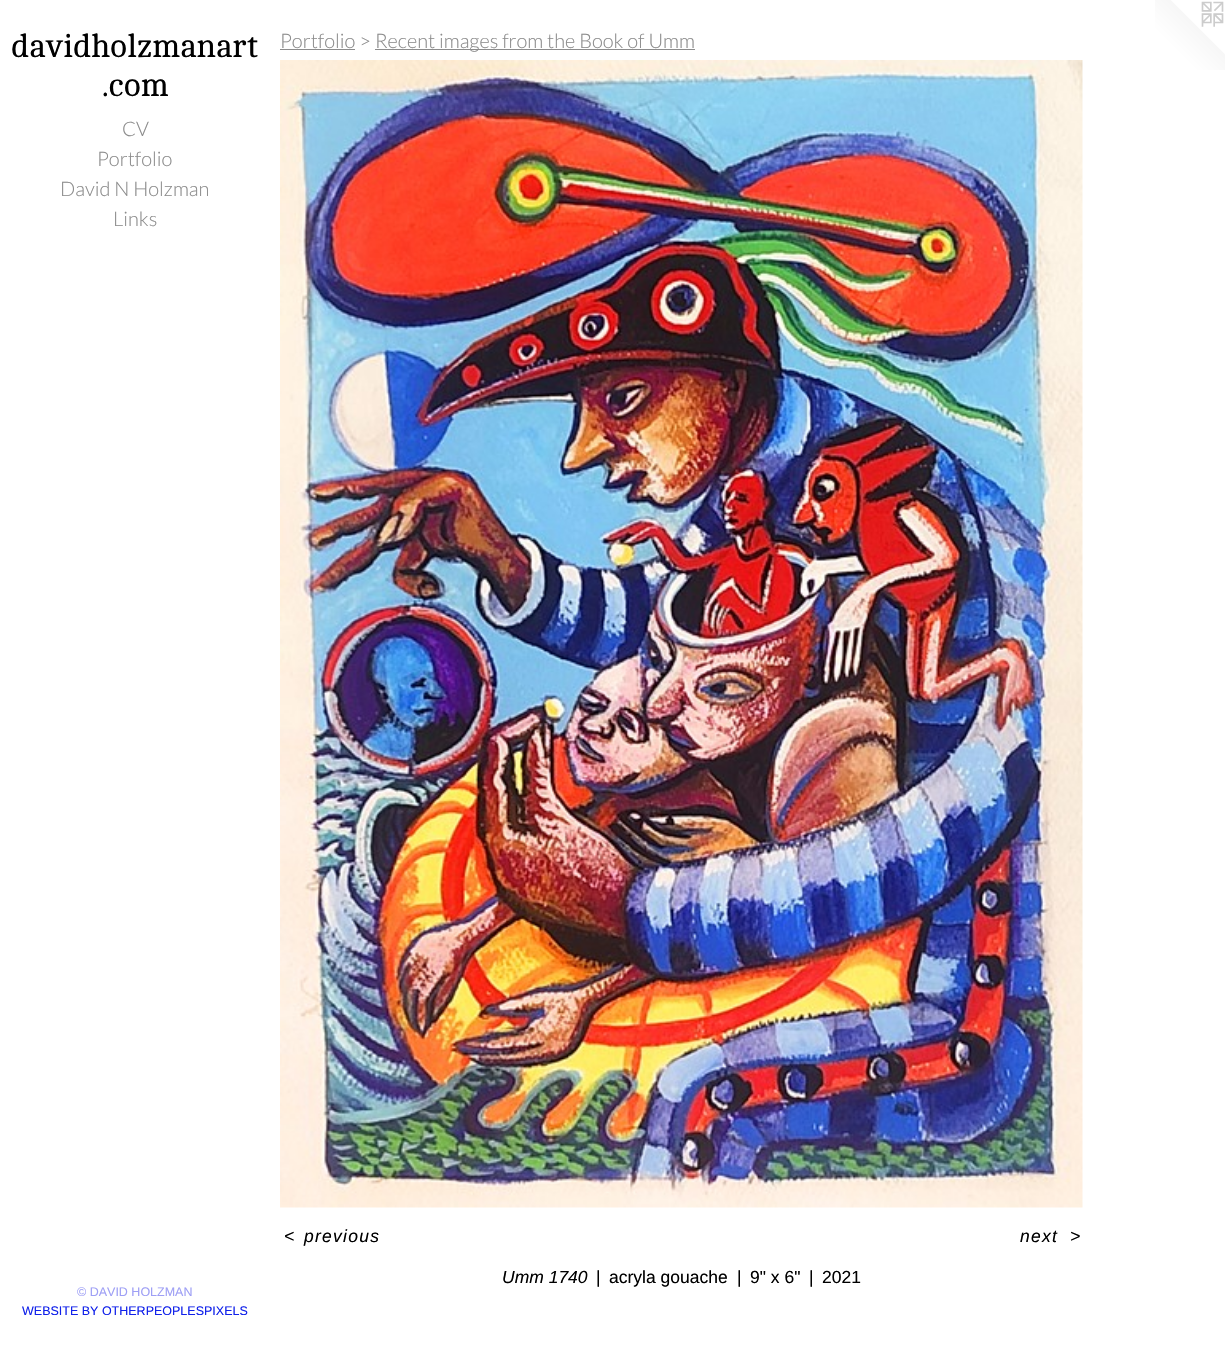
void draw(SkCanvas* canvas) {
    SkPaint paint;
    paint.setAntiAlias(true);
    auto face = [&](const char* family, int weight, float size, bool italic = false) {
        SkFontStyle style(weight, SkFontStyle::kNormal_Width,
            italic ? SkFontStyle::kItalic_Slant : SkFontStyle::kUpright_Slant);
        SkFont result(fontMgr->matchFamilyStyle(family, style), size);
        result.setSubpixel(true);
        return result;
    };
    auto write = [&](const char* s, float x, float y, const SkFont& font, SkColor color) {
        SkPaint ink(SkColor4f::FromColor(color));
        ink.setAntiAlias(true);
        canvas->drawString(s, x, y, font, ink);
    };
    auto writeSpaced = [&](const char* s, float x, float y, const SkFont& font, const SkPaint& ink, float letter, float word) {
        std::vector<SkGlyphID> glyphs(font.countText(s, strlen(s), SkTextEncoding::kUTF8));
        std::vector<float> xs(glyphs.size());
        font.textToGlyphs(s, strlen(s), SkTextEncoding::kUTF8, glyphs);
        font.getXPos(glyphs, xs, x);
        float extra = 0;
        for (size_t i = 0; i < glyphs.size(); i++) {
            xs[i] += extra;
            extra += letter + word * (glyphs[i] == font.unicharToGlyph(' '));
        }
        canvas->drawTextBlob(SkTextBlob::MakeFromPosHGlyphs(glyphs, xs, y, font), 0, 0, ink);
    };
    auto block = [&](float x, float y, float w, float h, SkColor color) {
        SkPaint ink(SkColor4f::FromColor(color));
        ink.setAntiAlias(true);
        canvas->drawRect(SkRect::MakeXYWH(x, y, w, h), ink);
    };
    auto paste = [&](const char* path, float x, float y, float w, float h) {
        auto image = SkImages::DeferredFromEncodedData(SkData::MakeFromFileName(path));
        canvas->drawImageRect(image, SkRect::MakeXYWH(x, y, w, h), SkSamplingOptions());
    };
    canvas->clear(SK_ColorWHITE);
    auto kFont1 = face("Cambo", 400, 32.5f);
    write("davidholzmanart", 11, 57, kFont1, SK_ColorBLACK);
    write(".com", 102, 96, kFont1, SK_ColorBLACK);
    auto kFont2 = face("Lato", 300, 20);
    write("CV", 122, 136, kFont2, SkColorSetRGB(140, 140, 140));
    write("Portfolio", 97, 166, kFont2, SkColorSetRGB(140, 140, 140));
    write("David N Holzman", 60, 196, kFont2, SkColorSetRGB(140, 140, 140));
    write("Links", 113, 226, kFont2, SkColorSetRGB(140, 140, 140));
    auto kFont3 = face("Liberation Sans", 400, 12.5f);
    write("© DAVID HOLZMAN", 77, 1296, kFont3, SkColorSetRGB(158, 159, 245));
    write("WEBSITE BY OTHERPEOPLESPIXELS", 22, 1315, kFont3, SkColorSetRGB(16, 33, 234));
    write("Portfolio >", 280, 48, kFont2, SkColorSetRGB(140, 140, 140));
    block(280, 49, 75, 1, SkColorSetRGB(140, 140, 140));
    block(375, 49, 320, 1, SkColorSetRGB(140, 140, 140));
    write("Recent images from the Book of Umm", 375, 48, kFont2, SkColorSetRGB(140, 140, 140));
    paste("pic1.png", 280, 60, 803, 1148);
    auto kFont4 = face("Liberation Sans", 400, 17.5f, true);
    paint.setColor(SK_ColorBLACK);
    writeSpaced("<", 284, 1242, kFont4, paint, 1.25f, 0);
    writeSpaced("previous", 304, 1242, kFont4, paint, 1.25f, 0);
    writeSpaced("next", 1020, 1242, kFont4, paint, 1.25f, 0);
    writeSpaced(">", 1070, 1242, kFont4, paint, 1.25f, 0);
    write("Umm 1740", 502, 1283, kFont4, SK_ColorBLACK);
    auto kFont5 = face("Liberation Sans", 400, 17.5f);
    write("|", 596, 1283, kFont5, SK_ColorBLACK);
    write("acryla gouache", 609, 1283, kFont5, SK_ColorBLACK);
    write("|", 737, 1283, kFont5, SK_ColorBLACK);
    write("9\" x 6\"", 750, 1283, kFont5, SK_ColorBLACK);
    write("|", 809, 1283, kFont5, SK_ColorBLACK);
    write("2021", 822, 1283, kFont5, SK_ColorBLACK);
    paste("pic2.png", 1155, 0, 70, 70);
}
